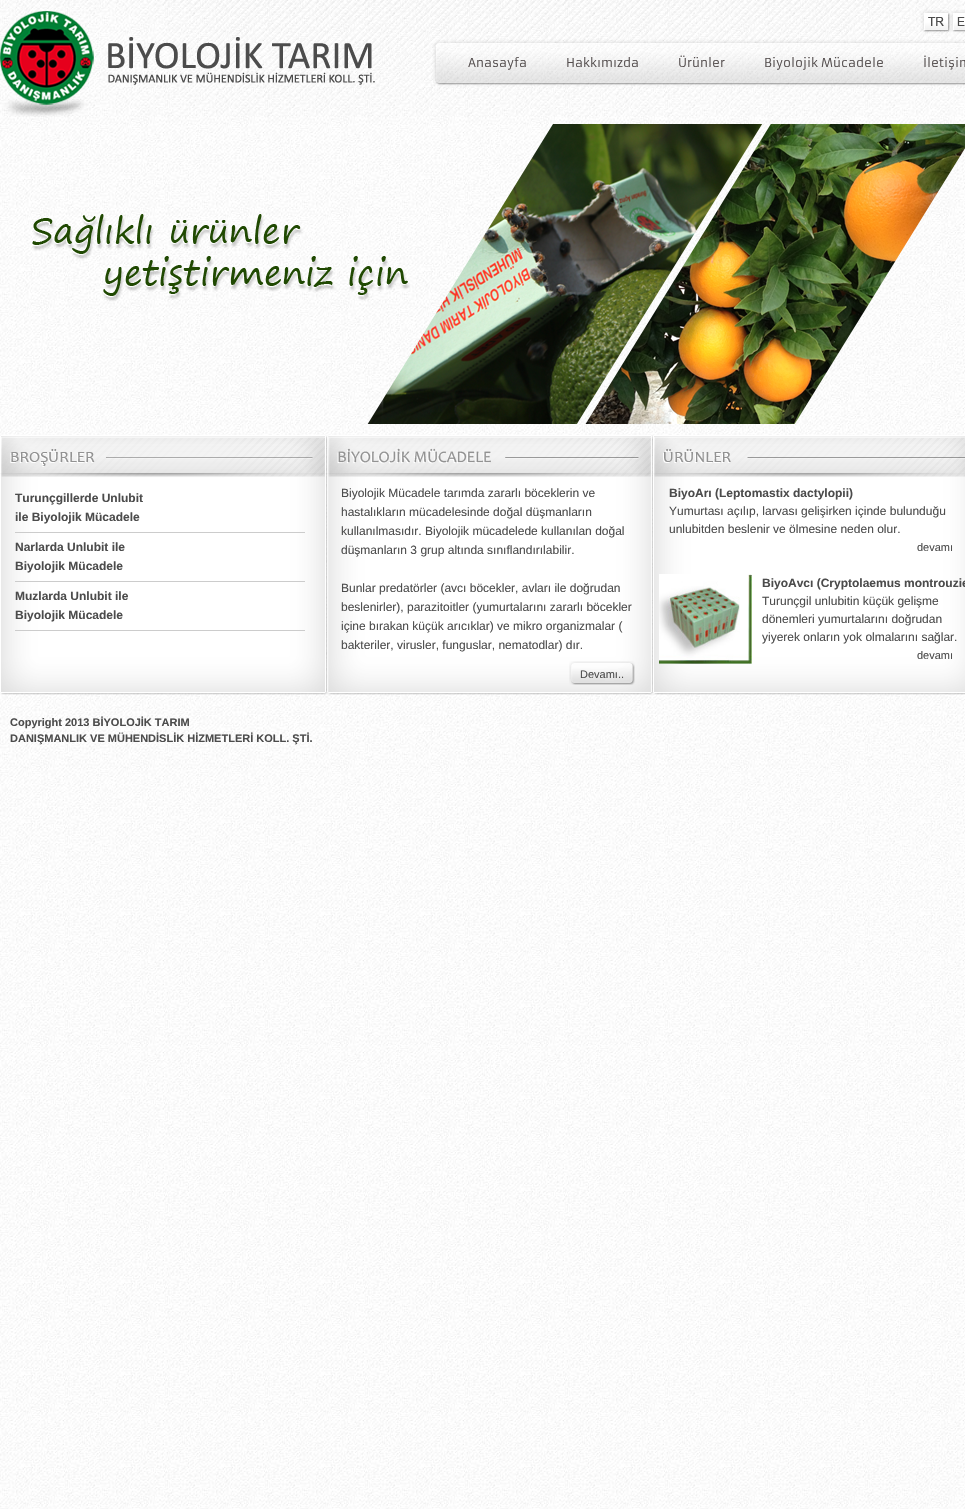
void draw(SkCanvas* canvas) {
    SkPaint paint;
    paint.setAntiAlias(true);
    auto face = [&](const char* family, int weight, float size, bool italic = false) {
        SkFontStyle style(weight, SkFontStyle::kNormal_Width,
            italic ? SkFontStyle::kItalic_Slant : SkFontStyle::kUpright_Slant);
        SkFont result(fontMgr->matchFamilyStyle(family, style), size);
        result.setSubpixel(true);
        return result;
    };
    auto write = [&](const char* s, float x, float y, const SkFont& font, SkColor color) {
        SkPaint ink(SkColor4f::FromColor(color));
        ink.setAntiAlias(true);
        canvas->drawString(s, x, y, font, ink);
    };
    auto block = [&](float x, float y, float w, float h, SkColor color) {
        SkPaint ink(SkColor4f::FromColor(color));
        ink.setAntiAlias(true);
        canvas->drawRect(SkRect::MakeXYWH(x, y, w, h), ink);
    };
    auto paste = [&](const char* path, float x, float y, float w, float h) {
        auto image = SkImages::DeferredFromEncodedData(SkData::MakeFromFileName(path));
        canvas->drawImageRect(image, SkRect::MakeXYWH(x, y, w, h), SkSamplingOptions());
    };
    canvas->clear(SK_ColorWHITE);
    paste("pic1.png", 0, 0, 965, 1509);
    paste("pic2.png", 0, 0, 965, 117);
    auto kFont1 = face("Armata", 400, 12);
    write("Anasayfa", 468, 67, kFont1, SkColorSetRGB(85, 79, 79));
    write("Hakkımızda", 566, 67, kFont1, SkColorSetRGB(85, 79, 79));
    write("Ürünler", 678, 67, kFont1, SkColorSetRGB(85, 79, 79));
    write("Biyolojik Mücadele", 764, 67, kFont1, SkColorSetRGB(85, 79, 79));
    write("İletişim", 923, 67, kFont1, SkColorSetRGB(85, 79, 79));
    paste("pic3.png", 32, 124, 933, 300);
    paste("pic4.png", 0, 435, 965, 260);
    block(15, 532, 290, 1, SkColorSetRGB(204, 204, 204));
    auto kFont2 = face("Liberation Sans", 700, 12);
    write("Turunçgillerde Unlubit", 15, 502, kFont2, SkColorSetRGB(76, 76, 76));
    write("ile Biyolojik Mücadele", 15, 521, kFont2, SkColorSetRGB(76, 76, 76));
    block(15, 581, 290, 1, SkColorSetRGB(204, 204, 204));
    write("Narlarda Unlubit ile", 15, 551, kFont2, SkColorSetRGB(76, 76, 76));
    write("Biyolojik Mücadele", 15, 570, kFont2, SkColorSetRGB(76, 76, 76));
    block(15, 630, 290, 1, SkColorSetRGB(204, 204, 204));
    write("Muzlarda Unlubit ile", 15, 600, kFont2, SkColorSetRGB(76, 76, 76));
    write("Biyolojik Mücadele", 15, 619, kFont2, SkColorSetRGB(76, 76, 76));
    auto kFont3 = face("Liberation Sans", 400, 12);
    write("Biyolojik Mücadele tarımda zararlı böceklerin ve", 341, 497, kFont3, SkColorSetRGB(76, 76, 76));
    write("hastalıkların mücadelesinde doğal düşmanların", 341, 516, kFont3, SkColorSetRGB(76, 76, 76));
    write("kullanılmasıdır. Biyolojik mücadelede kullanılan doğal", 341, 535, kFont3, SkColorSetRGB(76, 76, 76));
    write("düşmanların 3 grup altında sınıflandırılabilir.", 341, 554, kFont3, SkColorSetRGB(76, 76, 76));
    write("Bunlar predatörler (avcı böcekler, avları ile doğrudan", 341, 592, kFont3, SkColorSetRGB(76, 76, 76));
    write("beslenirler), parazitoitler (yumurtalarını zararlı böcekler", 341, 611, kFont3, SkColorSetRGB(76, 76, 76));
    write("içine bırakan küçük arıcıklar) ve mikro organizmalar (", 341, 630, kFont3, SkColorSetRGB(76, 76, 76));
    write("bakteriler, virusler, funguslar, nematodlar) dır.", 341, 649, kFont3, SkColorSetRGB(76, 76, 76));
    paste("pic5.png", 569, 661, 66, 24);
    auto kFont4 = face("Liberation Sans", 400, 11);
    write("Devamı..", 580, 678, kFont4, SkColorSetRGB(76, 76, 76));
    write("BiyoArı (Leptomastix dactylopii)", 669, 497, kFont2, SkColorSetRGB(76, 76, 76));
    write("Yumurtası açılıp, larvası gelişirken içinde bulunduğu", 669, 515, kFont3, SkColorSetRGB(76, 76, 76));
    write("unlubitden beslenir ve ölmesine neden olur.", 669, 533, kFont3, SkColorSetRGB(76, 76, 76));
    write("devamı", 917, 551, kFont4, SkColorSetRGB(76, 76, 76));
    paste("pic6.png", 659, 574, 93, 90);
    write("BiyoAvcı (Cryptolaemus montrouzie", 762, 587, kFont2, SkColorSetRGB(76, 76, 76));
    write("Turunçgil unlubitin küçük gelişme", 762, 605, kFont3, SkColorSetRGB(76, 76, 76));
    write("dönemleri yumurtalarını doğrudan", 762, 623, kFont3, SkColorSetRGB(76, 76, 76));
    write("yiyerek onların yok olmalarını sağlar.", 762, 641, kFont3, SkColorSetRGB(76, 76, 76));
    write("devamı", 917, 659, kFont4, SkColorSetRGB(76, 76, 76));
    auto kFont5 = face("Liberation Sans", 700, 11);
    write("Copyright 2013 BİYOLOJİK TARIM", 10, 726, kFont5, SkColorSetRGB(76, 76, 76));
    write("DANIŞMANLIK VE MÜHENDİSLİK HİZMETLERİ KOLL. ŞTİ.", 10, 742, kFont5, SkColorSetRGB(76, 76, 76));
}
